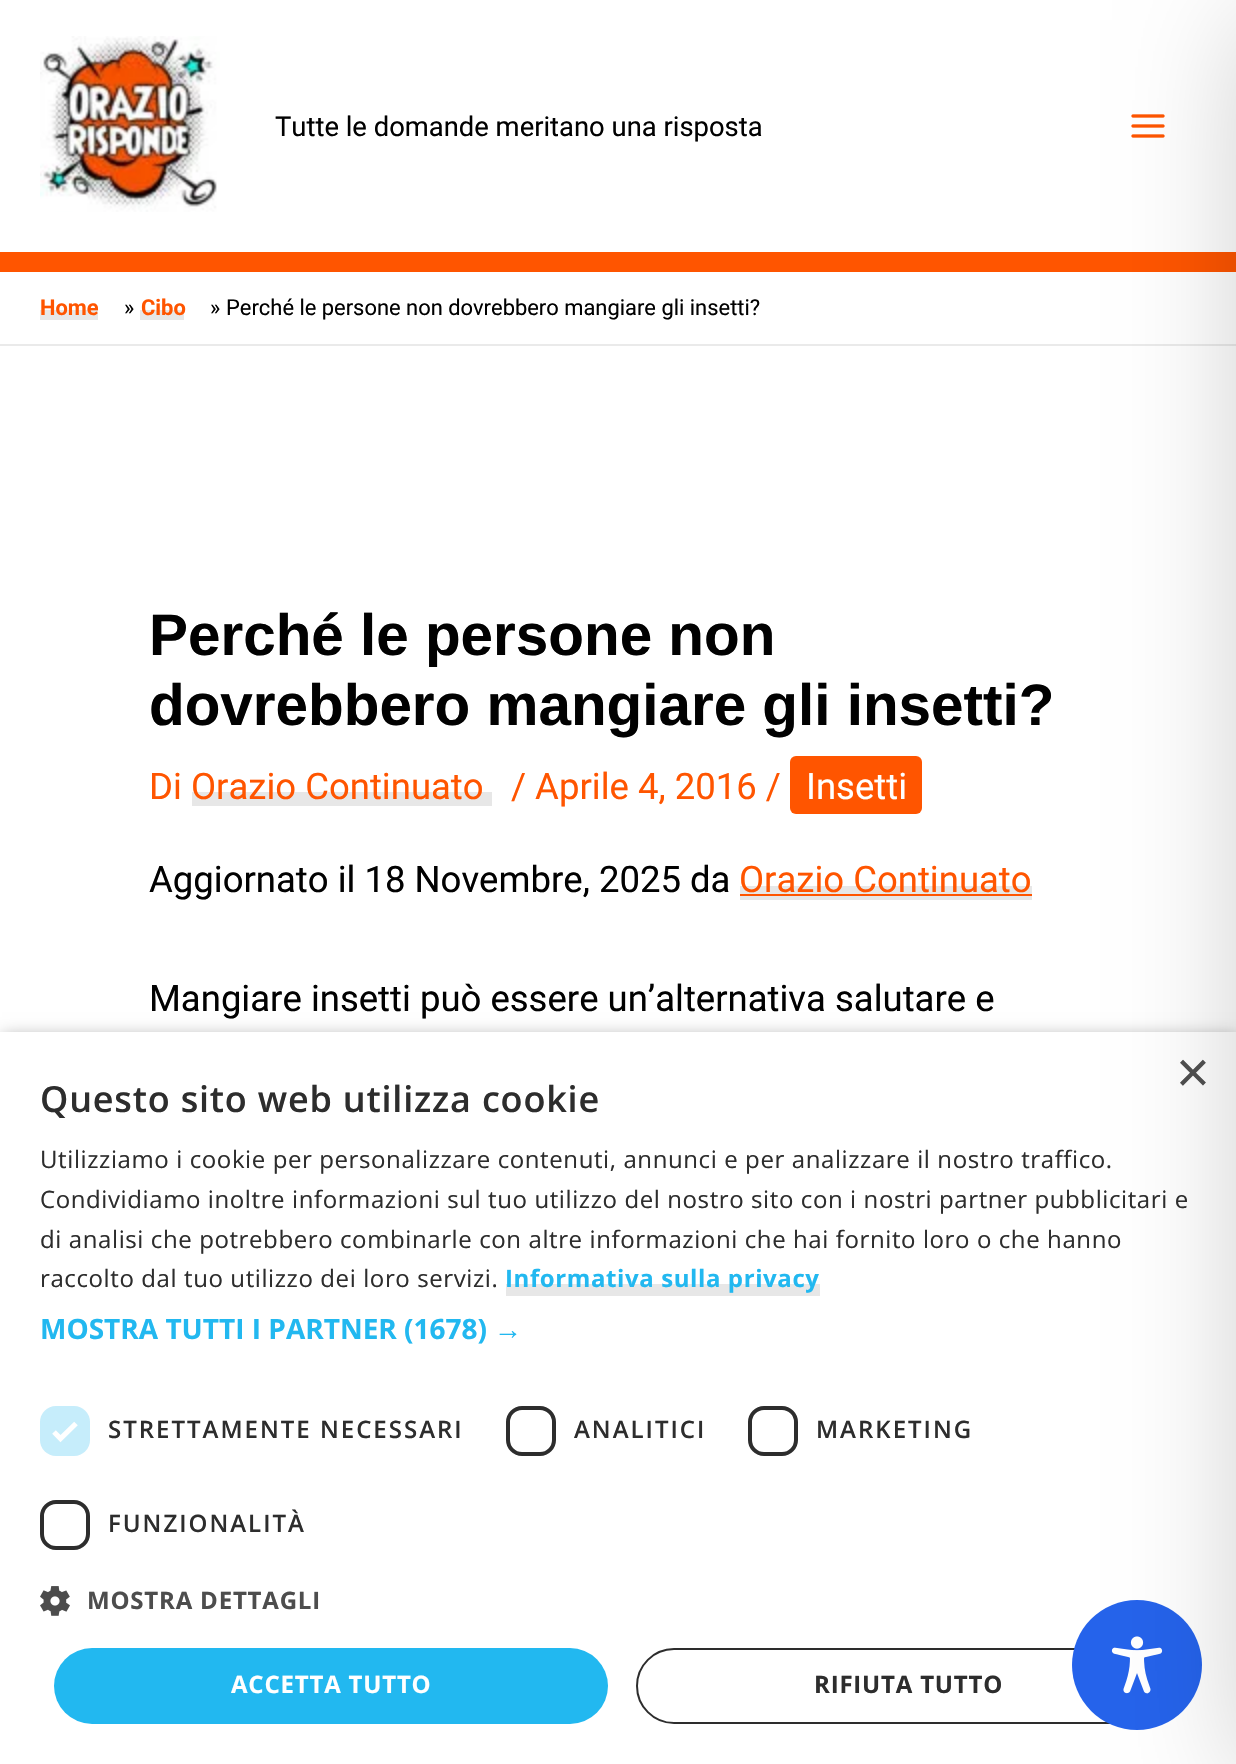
void draw(SkCanvas* canvas) {
    SkPaint paint;
    paint.setAntiAlias(true);
    auto face = [&](const char* family, int weight, float size, bool italic = false) {
        SkFontStyle style(weight, SkFontStyle::kNormal_Width,
            italic ? SkFontStyle::kItalic_Slant : SkFontStyle::kUpright_Slant);
        SkFont result(fontMgr->matchFamilyStyle(family, style), size);
        result.setSubpixel(true);
        return result;
    };
    auto write = [&](const char* s, float x, float y, const SkFont& font, SkColor color) {
        SkPaint ink(SkColor4f::FromColor(color));
        ink.setAntiAlias(true);
        canvas->drawString(s, x, y, font, ink);
    };
    auto writeSpaced = [&](const char* s, float x, float y, const SkFont& font, const SkPaint& ink, float letter, float word) {
        std::vector<SkGlyphID> glyphs(font.countText(s, strlen(s), SkTextEncoding::kUTF8));
        std::vector<float> xs(glyphs.size());
        font.textToGlyphs(s, strlen(s), SkTextEncoding::kUTF8, glyphs);
        font.getXPos(glyphs, xs, x);
        float extra = 0;
        for (size_t i = 0; i < glyphs.size(); i++) {
            xs[i] += extra;
            extra += letter + word * (glyphs[i] == font.unicharToGlyph(' '));
        }
        canvas->drawTextBlob(SkTextBlob::MakeFromPosHGlyphs(glyphs, xs, y, font), 0, 0, ink);
    };
    auto block = [&](float x, float y, float w, float h, SkColor color) {
        SkPaint ink(SkColor4f::FromColor(color));
        ink.setAntiAlias(true);
        canvas->drawRect(SkRect::MakeXYWH(x, y, w, h), ink);
    };
    auto card = [&](float x, float y, float w, float h, float radius, SkColor color) {
        SkPaint ink(SkColor4f::FromColor(color));
        ink.setAntiAlias(true);
        canvas->drawRoundRect(SkRect::MakeXYWH(x, y, w, h), radius, radius, ink);
    };
    auto paste = [&](const char* path, float x, float y, float w, float h) {
        auto image = SkImages::DeferredFromEncodedData(SkData::MakeFromFileName(path));
        canvas->drawImageRect(image, SkRect::MakeXYWH(x, y, w, h), SkSamplingOptions());
    };
    canvas->clear(SK_ColorWHITE);
    block(0, 252, 1236, 20, SkColorSetRGB(255, 85, 0));
    paste("pic1.png", 40, 36, 180, 176);
    auto kFont1 = face("Roboto", 400, 27.4f);
    write("Tutte le domande meritano una risposta", 275, 136, kFont1, SkColorSetRGB(1, 1, 1));
    paste("pic2.png", 1131, 114, 34, 24);
    block(0, 344, 1236, 2, SkColorSetRGB(234, 234, 234));
    block(40, 310, 58, 10, SkColorSetRGB(231, 231, 231));
    auto kFont2 = face("Roboto", 700, 21.9f);
    write("Home", 40, 315, kFont2, SkColorSetRGB(255, 85, 0));
    auto kFont3 = face("Roboto", 400, 21.9f);
    write("»", 124, 315, kFont3, SkColorSetRGB(1, 1, 1));
    block(140, 310, 44, 10, SkColorSetRGB(231, 231, 231));
    write("Cibo", 141, 315, kFont2, SkColorSetRGB(255, 85, 0));
    write("»", 210, 315, kFont3, SkColorSetRGB(1, 1, 1));
    write("Perché le persone non dovrebbero mangiare gli insetti?", 226, 315, kFont3, SkColorSetRGB(1, 1, 1));
    auto kFont4 = face("Liberation Sans", 700, 58.4f);
    write("Perché le persone non", 149, 655, kFont4, SkColorSetRGB(1, 1, 1));
    write("dovrebbero mangiare gli insetti?", 149, 725, kFont4, SkColorSetRGB(1, 1, 1));
    auto kFont5 = face("Roboto", 400, 36.5f);
    write("Di", 149, 799, kFont5, SkColorSetRGB(255, 85, 0));
    block(192, 792, 300, 14, SkColorSetRGB(231, 231, 231));
    write("Orazio Continuato", 191, 799, kFont5, SkColorSetRGB(255, 85, 0));
    write("/ Aprile 4, 2016 /", 511, 799, kFont5, SkColorSetRGB(255, 85, 0));
    card(790, 756, 132, 58, 6, SkColorSetRGB(255, 85, 0));
    write("Insetti", 806, 799, kFont5, SK_ColorWHITE);
    write("Aggiornato il 18 Novembre, 2025 da", 149, 892, kFont5, SkColorSetRGB(1, 1, 1));
    block(740, 886, 292, 14, SkColorSetRGB(231, 231, 231));
    write("Orazio Continuato", 739, 892, kFont5, SkColorSetRGB(255, 85, 0));
    block(740, 894, 292, 2, SkColorSetRGB(255, 85, 0));
    write("Mangiare insetti può essere un’alternativa salutare e", 149, 1011, kFont5, SkColorSetRGB(1, 1, 1));
    paint.setColor(SkColorSetARGB(89, 0, 0, 0));
    paint.setMaskFilter(SkMaskFilter::MakeBlur(kNormal_SkBlurStyle, 8));
    canvas->drawRect(SkRect::MakeXYWH(2, 1036, 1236, 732), paint);
    paint.setMaskFilter(nullptr);
    block(0, 1032, 1236, 732, SK_ColorWHITE);
    paint.setStyle(SkPaint::kStroke_Style);
    paint.setStrokeWidth(2);
    paint.setColor(SkColorSetRGB(45, 45, 45));
    canvas->drawRoundRect(SkRect::MakeXYWH(637, 1649, 544, 74), 37, 37, paint);
    paint.setStyle(SkPaint::kFill_Style);
    paint.setColor(SkColorSetRGB(37, 99, 235));
    canvas->drawCircle(1137, 1665, 65, paint);
    paste("pic4.png", 1111, 1636, 52, 58);
    paint.setColor(SkColorSetARGB(51, 0, 0, 0));
    paint.setMaskFilter(SkMaskFilter::MakeBlur(kNormal_SkBlurStyle, 60));
    canvas->drawRect(SkRect::MakeXYWH(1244, 20, 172, 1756), paint);
    paint.setMaskFilter(nullptr);
    auto kFont6 = face("Liberation Sans", 400, 58);
    write("×", 1176, 1092, kFont6, SkColorSetRGB(77, 77, 77));
    auto kFont7 = face("Open Sans", 600, 36);
    paint.setColor(SkColorSetRGB(45, 45, 45));
    writeSpaced("Questo sito web utilizza cookie", 40, 1112, kFont7, paint, 0.8f, 0);
    auto kFont8 = face("Open Sans", 400, 24);
    writeSpaced("Utilizziamo i cookie per personalizzare contenuti, annunci e per analizzare il nostro traffico.", 40, 1168, kFont8, paint, 0.6f, 0);
    writeSpaced("Condividiamo inoltre informazioni sul tuo utilizzo del nostro sito con i nostri partner pubblicitari e", 40, 1208, kFont8, paint, 0.6f, 0);
    writeSpaced("di analisi che potrebbero combinarle con altre informazioni che hai fornito loro o che hanno", 40, 1248, kFont8, paint, 0.6f, 0);
    writeSpaced("raccolto dal tuo utilizzo dei loro servizi.", 40, 1287, kFont8, paint, 0.6f, 0);
    block(506, 1284, 314, 12, SkColorSetRGB(231, 231, 231));
    auto kFont9 = face("Open Sans", 700, 24);
    paint.setColor(SkColorSetRGB(34, 184, 240));
    writeSpaced("Informativa sulla privacy", 505, 1287, kFont9, paint, 0.6f, 0);
    auto kFont10 = face("Open Sans", 700, 28);
    write("MOSTRA TUTTI I PARTNER (1678)", 40, 1339, kFont10, SkColorSetRGB(34, 184, 240));
    auto kFont11 = face("Liberation Sans", 700, 28);
    write("→", 494, 1339, kFont11, SkColorSetRGB(34, 184, 240));
    card(40, 1406, 50, 50, 16, SkColorSetRGB(198, 237, 251));
    paint.setStyle(SkPaint::kStroke_Style);
    paint.setStrokeWidth(5.2f);
    paint.setColor(SK_ColorWHITE);
    canvas->drawPath(SkPathBuilder().moveTo(54, 1432).lineTo(60.5f, 1438.5f).lineTo(76, 1423.5f).detach(), paint);
    auto kFont12 = face("Open Sans", 600, 24);
    paint.setStyle(SkPaint::kFill_Style);
    paint.setColor(SkColorSetRGB(45, 45, 45));
    writeSpaced("STRETTAMENTE NECESSARI", 108, 1438, kFont12, paint, 2, 0);
    paint.setStyle(SkPaint::kStroke_Style);
    paint.setStrokeWidth(4);
    canvas->drawRoundRect(SkRect::MakeXYWH(508, 1408, 46, 46), 14, 14, paint);
    paint.setStyle(SkPaint::kFill_Style);
    writeSpaced("ANALITICI", 574, 1438, kFont12, paint, 2, 0);
    paint.setStyle(SkPaint::kStroke_Style);
    canvas->drawRoundRect(SkRect::MakeXYWH(750, 1408, 46, 46), 14, 14, paint);
    paint.setStyle(SkPaint::kFill_Style);
    writeSpaced("MARKETING", 816, 1438, kFont12, paint, 2, 0);
    paint.setStyle(SkPaint::kStroke_Style);
    canvas->drawRoundRect(SkRect::MakeXYWH(42, 1502, 46, 46), 14, 14, paint);
    paint.setStyle(SkPaint::kFill_Style);
    writeSpaced("FUNZIONALITÀ", 108, 1532, kFont12, paint, 2, 0);
    paste("pic3.png", 40, 1586, 30, 30);
    paint.setColor(SkColorSetRGB(77, 77, 77));
    writeSpaced("MOSTRA DETTAGLI", 87, 1609, kFont9, paint, 0.8f, 0);
    card(54, 1648, 554, 76, 38, SkColorSetRGB(34, 184, 240));
    paint.setColor(SK_ColorWHITE);
    writeSpaced("ACCETTA TUTTO", 231, 1693, kFont9, paint, 0.8f, 0);
    paint.setColor(SkColorSetRGB(45, 45, 45));
    writeSpaced("RIFIUTA TUTTO", 814, 1693, kFont9, paint, 0.8f, 0);
}
